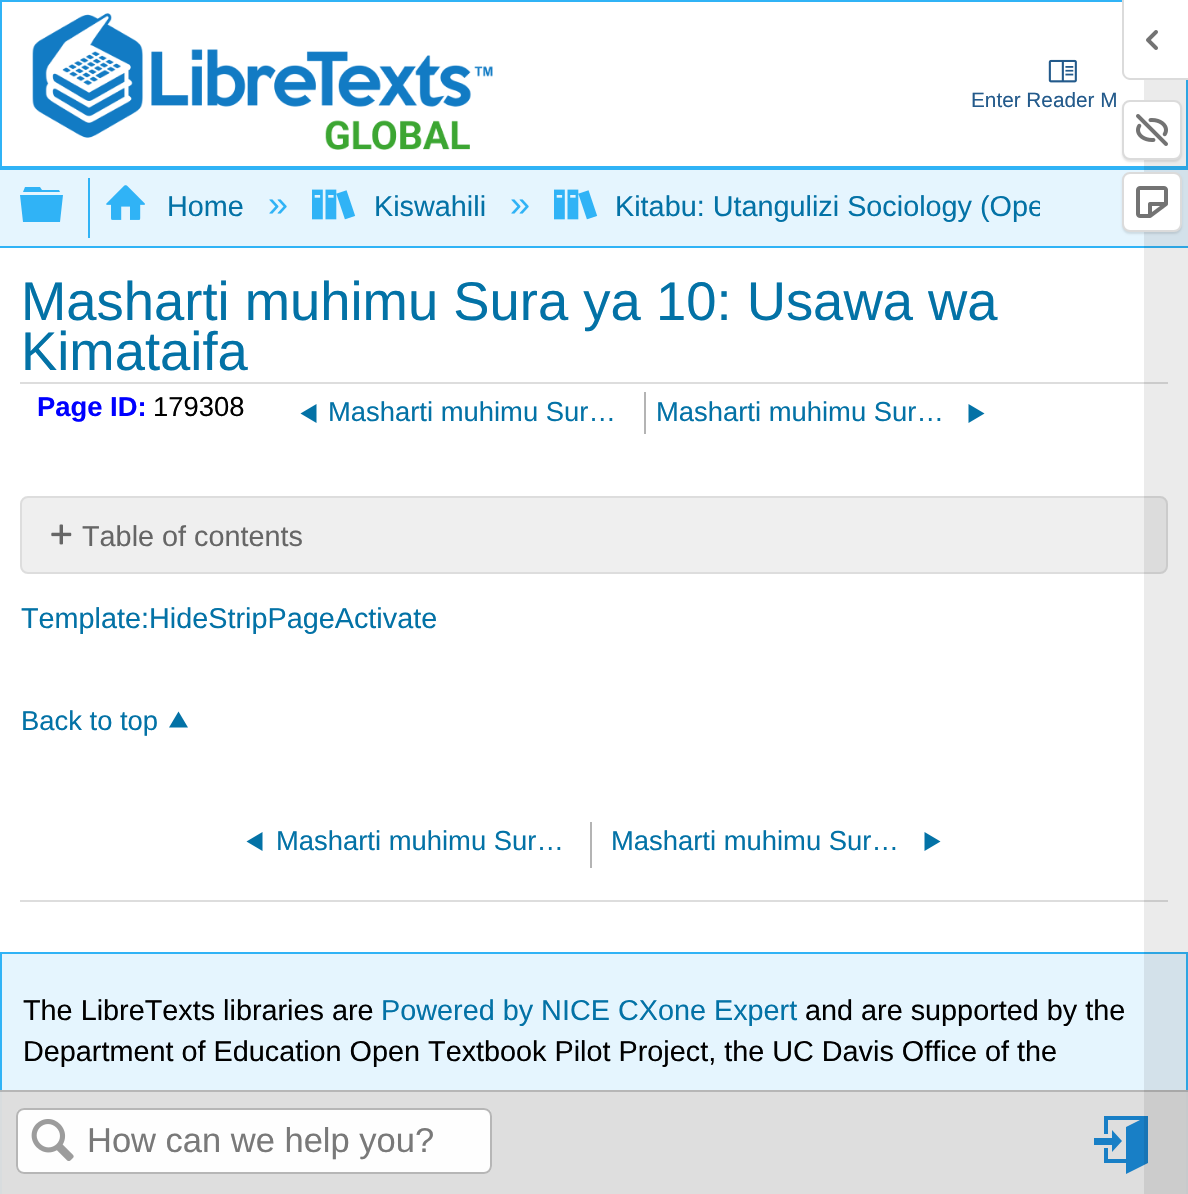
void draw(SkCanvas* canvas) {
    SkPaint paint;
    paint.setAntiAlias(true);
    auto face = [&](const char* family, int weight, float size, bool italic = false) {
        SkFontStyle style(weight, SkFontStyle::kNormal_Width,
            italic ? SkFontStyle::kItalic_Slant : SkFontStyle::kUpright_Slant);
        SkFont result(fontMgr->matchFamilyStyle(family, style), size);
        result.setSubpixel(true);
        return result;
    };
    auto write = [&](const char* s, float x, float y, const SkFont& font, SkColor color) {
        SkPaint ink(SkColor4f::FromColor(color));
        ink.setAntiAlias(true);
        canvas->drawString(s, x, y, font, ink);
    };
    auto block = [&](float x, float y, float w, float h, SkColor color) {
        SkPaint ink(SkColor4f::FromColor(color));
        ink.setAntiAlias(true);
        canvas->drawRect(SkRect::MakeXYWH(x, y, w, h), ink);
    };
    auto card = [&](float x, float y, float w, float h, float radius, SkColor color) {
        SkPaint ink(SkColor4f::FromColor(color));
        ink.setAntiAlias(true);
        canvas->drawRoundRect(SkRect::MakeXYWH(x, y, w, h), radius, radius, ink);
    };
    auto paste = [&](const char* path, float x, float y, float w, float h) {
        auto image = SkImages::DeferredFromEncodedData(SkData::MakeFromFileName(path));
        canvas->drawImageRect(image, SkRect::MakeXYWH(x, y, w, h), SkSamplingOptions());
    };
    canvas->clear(SK_ColorWHITE);
    paint.setStyle(SkPaint::kStroke_Style);
    paint.setStrokeWidth(2);
    paint.setColor(SkColorSetRGB(48, 179, 246));
    canvas->drawRect(SkRect::MakeXYWH(1, 1, 1186, 166), paint);
    paste("pic1.png", 32, 13, 461, 137);
    paste("pic2.png", 1048, 59, 29, 24);
    auto kFont1 = face("Liberation Sans", 400, 20.75f);
    write("Enter Reader M", 971, 107, kFont1, SkColorSetRGB(35, 90, 139));
    block(0, 170, 1188, 76, SkColorSetRGB(229, 245, 254));
    block(0, 168, 1188, 2, SkColorSetRGB(48, 179, 246));
    block(0, 246, 1188, 2, SkColorSetRGB(48, 179, 246));
    paint.setStyle(SkPaint::kFill_Style);
    canvas->drawPath(SkPathBuilder().moveTo(20, 195).lineTo(63, 195).lineTo(60, 222).lineTo(23, 222).close().moveTo(59, 190).lineTo(60, 192).lineTo(23, 192).lineTo(25, 187).lineTo(40, 187).lineTo(42, 190).close().detach(), paint);
    block(88, 178, 2, 60, SkColorSetRGB(48, 179, 246));
    paste("pic3.png", 106, 185, 39, 35);
    auto kFont2 = face("Liberation Sans", 400, 28.8f);
    write("Home", 167, 216, kFont2, SkColorSetRGB(3, 114, 166));
    auto kFont3 = face("Liberation Sans", 400, 36);
    write("»", 268, 216, kFont3, SkColorSetRGB(48, 179, 246));
    paste("pic4.png", 312, 189, 44, 31);
    write("Kiswahili", 374, 216, kFont2, SkColorSetRGB(3, 114, 166));
    write("»", 510, 216, kFont3, SkColorSetRGB(48, 179, 246));
    paste("pic4.png", 554, 189, 44, 31);
    canvas->save();
    canvas->clipRect(SkRect::MakeXYWH(90, 178, 950, 60));
    write("Kitabu: Utangulizi Sociology (Ope", 615, 216, kFont2, SkColorSetRGB(3, 114, 166));
    canvas->restore();
    paint.setColor(SkColorSetRGB(229, 245, 254));
    canvas->drawRect(SkRect::MakeXYWH(1, 953, 1186, 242), paint);
    paint.setStyle(SkPaint::kStroke_Style);
    paint.setColor(SkColorSetRGB(48, 179, 246));
    canvas->drawRect(SkRect::MakeXYWH(1, 953, 1186, 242), paint);
    block(0, 1092, 1188, 102, SkColorSetARGB(247, 221, 221, 221));
    block(0, 1090, 1188, 2, SkColorSetARGB(247, 180, 180, 180));
    card(16, 1108, 476, 66, 8, SkColorSetARGB(247, 255, 255, 255));
    paint.setColor(SkColorSetARGB(247, 180, 180, 180));
    canvas->drawRoundRect(SkRect::MakeXYWH(17, 1109, 474, 64), 7, 7, paint);
    paste("pic5.png", 31, 1119, 43, 42);
    auto kFont4 = face("Liberation Sans", 400, 34.5f);
    write("How can we help you?", 87, 1152, kFont4, SkColorSetRGB(121, 121, 121));
    paint.setStyle(SkPaint::kFill_Style);
    paint.setColor(SkColorSetRGB(24, 127, 198));
    canvas->drawPath(SkPathBuilder().moveTo(1112, 1145).lineTo(1094, 1145).lineTo(1094, 1138).lineTo(1112, 1138).lineTo(1112, 1130).lineTo(1122, 1141).lineTo(1112, 1152).close().moveTo(1148, 1116).lineTo(1148, 1163).lineTo(1126, 1174).lineTo(1126, 1163).lineTo(1104, 1163).lineTo(1104, 1148).lineTo(1108, 1148).lineTo(1108, 1159).lineTo(1126, 1159).lineTo(1126, 1127).lineTo(1140, 1120).lineTo(1108, 1120).lineTo(1108, 1134).lineTo(1104, 1134).lineTo(1104, 1116).close().detach(), paint);
    block(20, 382, 1148, 2, SkColorSetRGB(221, 221, 221));
    auto kFont5 = face("Liberation Sans", 400, 54.4f);
    write("Masharti muhimu Sura ya 10: Usawa wa", 21, 320, kFont5, SkColorSetRGB(3, 114, 166));
    write("Kimataifa", 21, 370, kFont5, SkColorSetRGB(3, 114, 166));
    auto kFont6 = face("Liberation Sans", 700, 27.4f);
    write("Page ID:", 37, 416, kFont6, SkColorSetRGB(0, 0, 255));
    auto kFont7 = face("Liberation Sans", 400, 27.4f);
    write("179308", 153, 416, kFont7, SK_ColorBLACK);
    block(644, 392, 2, 42, SkColorSetRGB(180, 180, 180));
    paint.setColor(SkColorSetRGB(3, 114, 166));
    canvas->drawPath(SkPathBuilder().moveTo(316.5f, 404).lineTo(316.5f, 423).lineTo(300.5f, 413.5f).close().detach(), paint);
    write("Masharti muhimu Sur…", 328, 421, kFont7, SkColorSetRGB(3, 114, 166));
    write("Masharti muhimu Sur…", 656, 421, kFont7, SkColorSetRGB(3, 114, 166));
    canvas->drawPath(SkPathBuilder().moveTo(968.5f, 404).lineTo(968.5f, 423).lineTo(984.5f, 413.5f).close().detach(), paint);
    paint.setColor(SkColorSetRGB(239, 239, 239));
    canvas->drawRoundRect(SkRect::MakeXYWH(21, 497, 1146, 76), 7, 7, paint);
    paint.setStyle(SkPaint::kStroke_Style);
    paint.setColor(SkColorSetRGB(221, 221, 221));
    canvas->drawRoundRect(SkRect::MakeXYWH(21, 497, 1146, 76), 7, 7, paint);
    paste("pic6.png", 51, 524, 21, 21);
    write("Table of contents", 82, 546, kFont2, SkColorSetRGB(102, 102, 102));
    write("Template:HideStripPageActivate", 21, 628, kFont2, SkColorSetRGB(3, 114, 166));
    block(20, 900, 1148, 2, SkColorSetRGB(221, 221, 221));
    write("Back to top", 21, 730, kFont7, SkColorSetRGB(3, 114, 166));
    paint.setStyle(SkPaint::kFill_Style);
    paint.setColor(SkColorSetRGB(3, 114, 166));
    canvas->drawPath(SkPathBuilder().moveTo(169, 727.5f).lineTo(188, 727.5f).lineTo(178.5f, 711.5f).close().detach(), paint);
    block(590, 822, 2, 46, SkColorSetRGB(180, 180, 180));
    canvas->drawPath(SkPathBuilder().moveTo(262.5f, 832).lineTo(262.5f, 851).lineTo(246.5f, 841.5f).close().detach(), paint);
    write("Masharti muhimu Sur…", 276, 850, kFont7, SkColorSetRGB(3, 114, 166));
    write("Masharti muhimu Sur…", 611, 850, kFont7, SkColorSetRGB(3, 114, 166));
    canvas->drawPath(SkPathBuilder().moveTo(924.5f, 832).lineTo(924.5f, 851).lineTo(940.5f, 841.5f).close().detach(), paint);
    write("The LibreTexts libraries are", 23, 1020, kFont2, SK_ColorBLACK);
    write("Powered by NICE CXone Expert", 381, 1020, kFont2, SkColorSetRGB(3, 114, 166));
    write("and are supported by the", 805, 1020, kFont2, SK_ColorBLACK);
    write("Department of Education Open Textbook Pilot Project, the UC Davis Office of the", 23, 1061, kFont2, SK_ColorBLACK);
    block(1144, 80, 44, 1114, SkColorSetARGB(20, 0, 0, 0));
    paint.setColor(SK_ColorWHITE);
    canvas->drawPath(SkPathBuilder().moveTo(1124, 0).lineTo(1188, 0).lineTo(1188, 78).lineTo(1130, 78).cubicTo(1126.5f, 78, 1124, 75.5f, 1124, 72).close().detach(), paint);
    paint.setColor(SkColorSetRGB(219, 219, 219));
    canvas->drawPath(SkPathBuilder(SkPathFillType::kEvenOdd).moveTo(1122, 0).lineTo(1188, 0).lineTo(1188, 80).lineTo(1130, 80).cubicTo(1126, 80, 1122, 76, 1122, 72).close().moveTo(1124, 0).lineTo(1188, 0).lineTo(1188, 78).lineTo(1130, 78).cubicTo(1127, 78, 1124, 75, 1124, 72).close().detach(), paint);
    paste("pic7.png", 1146, 30, 12, 20);
    paint.setColor(SkColorSetARGB(26, 0, 0, 0));
    paint.setMaskFilter(SkMaskFilter::MakeBlur(kNormal_SkBlurStyle, 1));
    canvas->drawRoundRect(SkRect::MakeXYWH(1122, 102, 60, 60), 8, 8, paint);
    paint.setMaskFilter(nullptr);
    paint.setColor(SK_ColorWHITE);
    canvas->drawRoundRect(SkRect::MakeXYWH(1123, 101, 58, 58), 7, 7, paint);
    paint.setStyle(SkPaint::kStroke_Style);
    paint.setColor(SkColorSetRGB(219, 219, 219));
    canvas->drawRoundRect(SkRect::MakeXYWH(1123, 101, 58, 58), 7, 7, paint);
    paste("pic8.png", 1136, 114, 32, 32);
    paint.setStyle(SkPaint::kFill_Style);
    paint.setColor(SkColorSetARGB(26, 0, 0, 0));
    paint.setMaskFilter(SkMaskFilter::MakeBlur(kNormal_SkBlurStyle, 1));
    canvas->drawRoundRect(SkRect::MakeXYWH(1122, 174, 60, 60), 8, 8, paint);
    paint.setMaskFilter(nullptr);
    paint.setColor(SK_ColorWHITE);
    canvas->drawRoundRect(SkRect::MakeXYWH(1123, 173, 58, 58), 7, 7, paint);
    paint.setStyle(SkPaint::kStroke_Style);
    paint.setColor(SkColorSetRGB(219, 219, 219));
    canvas->drawRoundRect(SkRect::MakeXYWH(1123, 173, 58, 58), 7, 7, paint);
    paste("pic9.png", 1136, 186, 32, 32);
}
